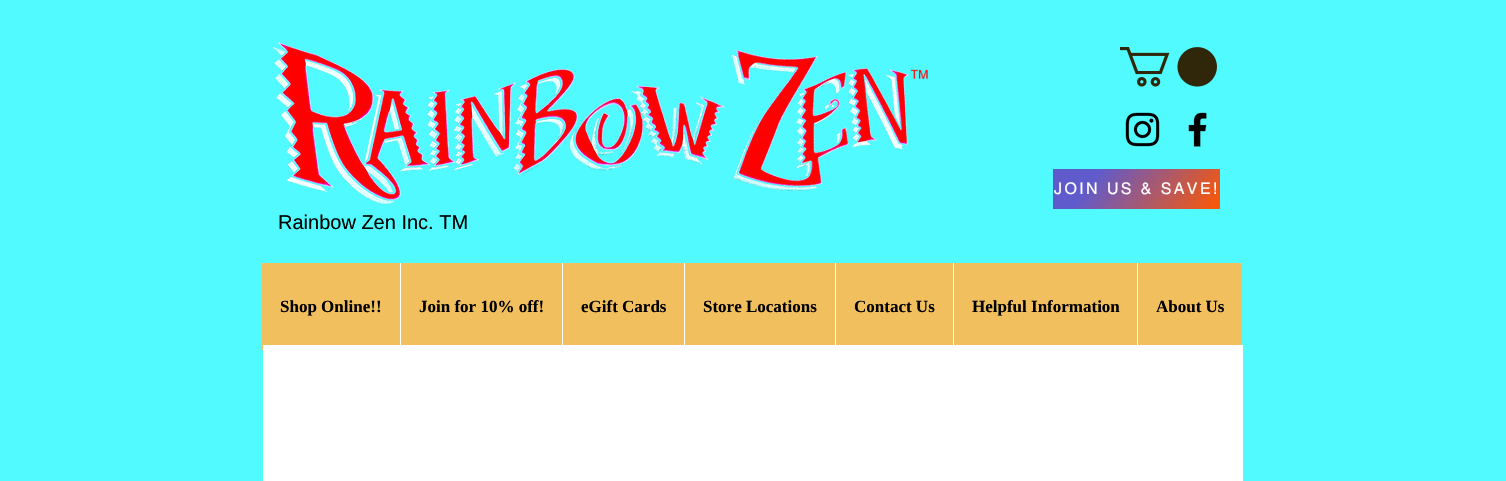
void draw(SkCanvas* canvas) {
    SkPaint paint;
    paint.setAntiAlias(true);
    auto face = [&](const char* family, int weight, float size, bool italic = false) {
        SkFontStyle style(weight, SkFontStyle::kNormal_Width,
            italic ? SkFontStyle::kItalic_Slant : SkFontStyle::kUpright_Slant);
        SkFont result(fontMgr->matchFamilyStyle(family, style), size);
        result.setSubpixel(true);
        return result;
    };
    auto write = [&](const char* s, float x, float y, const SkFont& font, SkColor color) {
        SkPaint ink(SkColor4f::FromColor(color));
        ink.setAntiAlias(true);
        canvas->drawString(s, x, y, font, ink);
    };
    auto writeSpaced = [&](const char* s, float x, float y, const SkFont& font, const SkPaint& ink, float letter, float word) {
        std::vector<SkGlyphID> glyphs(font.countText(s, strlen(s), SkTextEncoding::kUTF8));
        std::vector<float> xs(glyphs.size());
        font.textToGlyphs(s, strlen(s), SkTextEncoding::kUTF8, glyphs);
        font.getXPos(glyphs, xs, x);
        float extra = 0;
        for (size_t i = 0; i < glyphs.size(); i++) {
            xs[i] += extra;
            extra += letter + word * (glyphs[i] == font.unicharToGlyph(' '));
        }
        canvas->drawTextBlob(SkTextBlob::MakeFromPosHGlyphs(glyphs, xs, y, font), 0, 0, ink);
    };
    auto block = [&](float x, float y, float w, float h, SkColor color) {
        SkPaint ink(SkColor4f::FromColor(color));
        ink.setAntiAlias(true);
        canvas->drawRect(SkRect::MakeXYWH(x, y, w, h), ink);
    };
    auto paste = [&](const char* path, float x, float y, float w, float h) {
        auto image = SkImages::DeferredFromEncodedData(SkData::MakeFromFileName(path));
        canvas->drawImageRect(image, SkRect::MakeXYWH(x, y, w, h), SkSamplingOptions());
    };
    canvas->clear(SkColorSetRGB(80, 250, 254));
    paste("pic1.png", 272, 41, 658, 164);
    paste("pic2.png", 1120, 47, 97, 40);
    paste("pic3.png", 1125, 112, 35, 35);
    paste("pic4.png", 1188, 112, 19, 35);
    {
        const SkColor colors[] = {SkColorSetRGB(95, 91, 205), SkColorSetRGB(255, 87, 0)};
        const float stops[] = {0.24f, 1};
        const SkPoint ends[] = {{1072, 142}, {1201, 236}};
        paint.setShader(SkGradientShader::MakeLinear(ends, colors, stops, 2, SkTileMode::kClamp));
        paint.setAlpha(255);
    }
    canvas->drawRect(SkRect::MakeXYWH(1053, 169, 167, 40), paint);
    auto kFont1 = face("helvetica", 400, 16);
    paint.setShader(nullptr);
    paint.setColor(SK_ColorWHITE);
    writeSpaced("JOIN US & SAVE!", 1054, 194, kFont1, paint, 2.4f, 0);
    auto kFont2 = face("Liberation Sans", 400, 20);
    write("Rainbow Zen Inc. TM", 278, 229, kFont2, SK_ColorBLACK);
    block(262, 263, 980, 87, SkColorSetRGB(242, 191, 94));
    auto kFont3 = face("Liberation Serif", 700, 17);
    write("Shop Online!!", 280, 312, kFont3, SK_ColorBLACK);
    block(400, 263, 1, 87, SK_ColorWHITE);
    write("Join for 10% off!", 419, 312, kFont3, SK_ColorBLACK);
    block(562, 263, 1, 87, SK_ColorWHITE);
    write("eGift Cards", 581, 312, kFont3, SK_ColorBLACK);
    block(684, 263, 1, 87, SK_ColorWHITE);
    write("Store Locations", 703, 312, kFont3, SK_ColorBLACK);
    block(835, 263, 1, 87, SK_ColorWHITE);
    write("Contact Us", 854, 312, kFont3, SK_ColorBLACK);
    block(953, 263, 1, 87, SK_ColorWHITE);
    write("Helpful Information", 972, 312, kFont3, SK_ColorBLACK);
    block(1137, 263, 1, 87, SK_ColorWHITE);
    write("About Us", 1156, 312, kFont3, SK_ColorBLACK);
    block(263, 345, 980, 136, SK_ColorWHITE);
}
